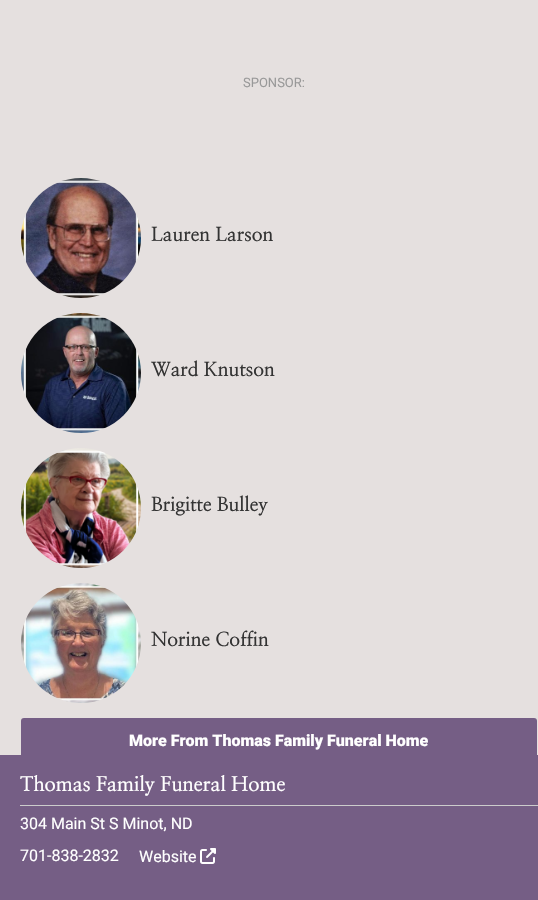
void draw(SkCanvas* canvas) {
    SkPaint paint;
    paint.setAntiAlias(true);
    auto face = [&](const char* family, int weight, float size, bool italic = false) {
        SkFontStyle style(weight, SkFontStyle::kNormal_Width,
            italic ? SkFontStyle::kItalic_Slant : SkFontStyle::kUpright_Slant);
        SkFont result(fontMgr->matchFamilyStyle(family, style), size);
        result.setSubpixel(true);
        return result;
    };
    auto write = [&](const char* s, float x, float y, const SkFont& font, SkColor color) {
        SkPaint ink(SkColor4f::FromColor(color));
        ink.setAntiAlias(true);
        canvas->drawString(s, x, y, font, ink);
    };
    auto block = [&](float x, float y, float w, float h, SkColor color) {
        SkPaint ink(SkColor4f::FromColor(color));
        ink.setAntiAlias(true);
        canvas->drawRect(SkRect::MakeXYWH(x, y, w, h), ink);
    };
    auto card = [&](float x, float y, float w, float h, float radius, SkColor color) {
        SkPaint ink(SkColor4f::FromColor(color));
        ink.setAntiAlias(true);
        canvas->drawRoundRect(SkRect::MakeXYWH(x, y, w, h), radius, radius, ink);
    };
    auto paste = [&](const char* path, float x, float y, float w, float h) {
        auto image = SkImages::DeferredFromEncodedData(SkData::MakeFromFileName(path));
        canvas->drawImageRect(image, SkRect::MakeXYWH(x, y, w, h), SkSamplingOptions());
    };
    canvas->clear(SkColorSetRGB(229, 224, 223));
    auto kFont1 = face("Roboto", 400, 13);
    write("SPONSOR:", 243, 87, kFont1, SkColorSetRGB(153, 153, 153));
    paste("pic1.png", 21, 178, 120, 120);
    auto kFont2 = face("NanumMyeongjo", 700, 19.25f);
    write("Lauren Larson", 151, 241, kFont2, SkColorSetRGB(51, 51, 51));
    paste("pic2.png", 21, 313, 120, 120);
    write("Ward Knutson", 151, 376, kFont2, SkColorSetRGB(51, 51, 51));
    paste("pic3.png", 21, 448, 120, 120);
    write("Brigitte Bulley", 151, 511, kFont2, SkColorSetRGB(51, 51, 51));
    paste("pic4.png", 21, 583, 120, 120);
    write("Norine Coffin", 151, 646, kFont2, SkColorSetRGB(51, 51, 51));
    card(21, 718, 516, 46, 3, SkColorSetRGB(117, 94, 133));
    auto kFont3 = face("Roboto", 900, 16);
    write("More From Thomas Family Funeral Home", 129, 746, kFont3, SK_ColorWHITE);
    block(0, 755, 538, 145, SkColorSetRGB(117, 94, 133));
    block(20, 805, 518, 1, SkColorSetRGB(204, 204, 204));
    auto kFont4 = face("NanumMyeongjo", 700, 20);
    write("Thomas Family Funeral Home", 20, 791, kFont4, SK_ColorWHITE);
    auto kFont5 = face("Roboto", 400, 16);
    write("304 Main St S Minot, ND", 20, 829, kFont5, SK_ColorWHITE);
    write("701-838-2832", 20, 861, kFont5, SK_ColorWHITE);
    write("Website", 139, 862, kFont5, SK_ColorWHITE);
    paste("pic5.png", 200, 848, 16, 16);
}
